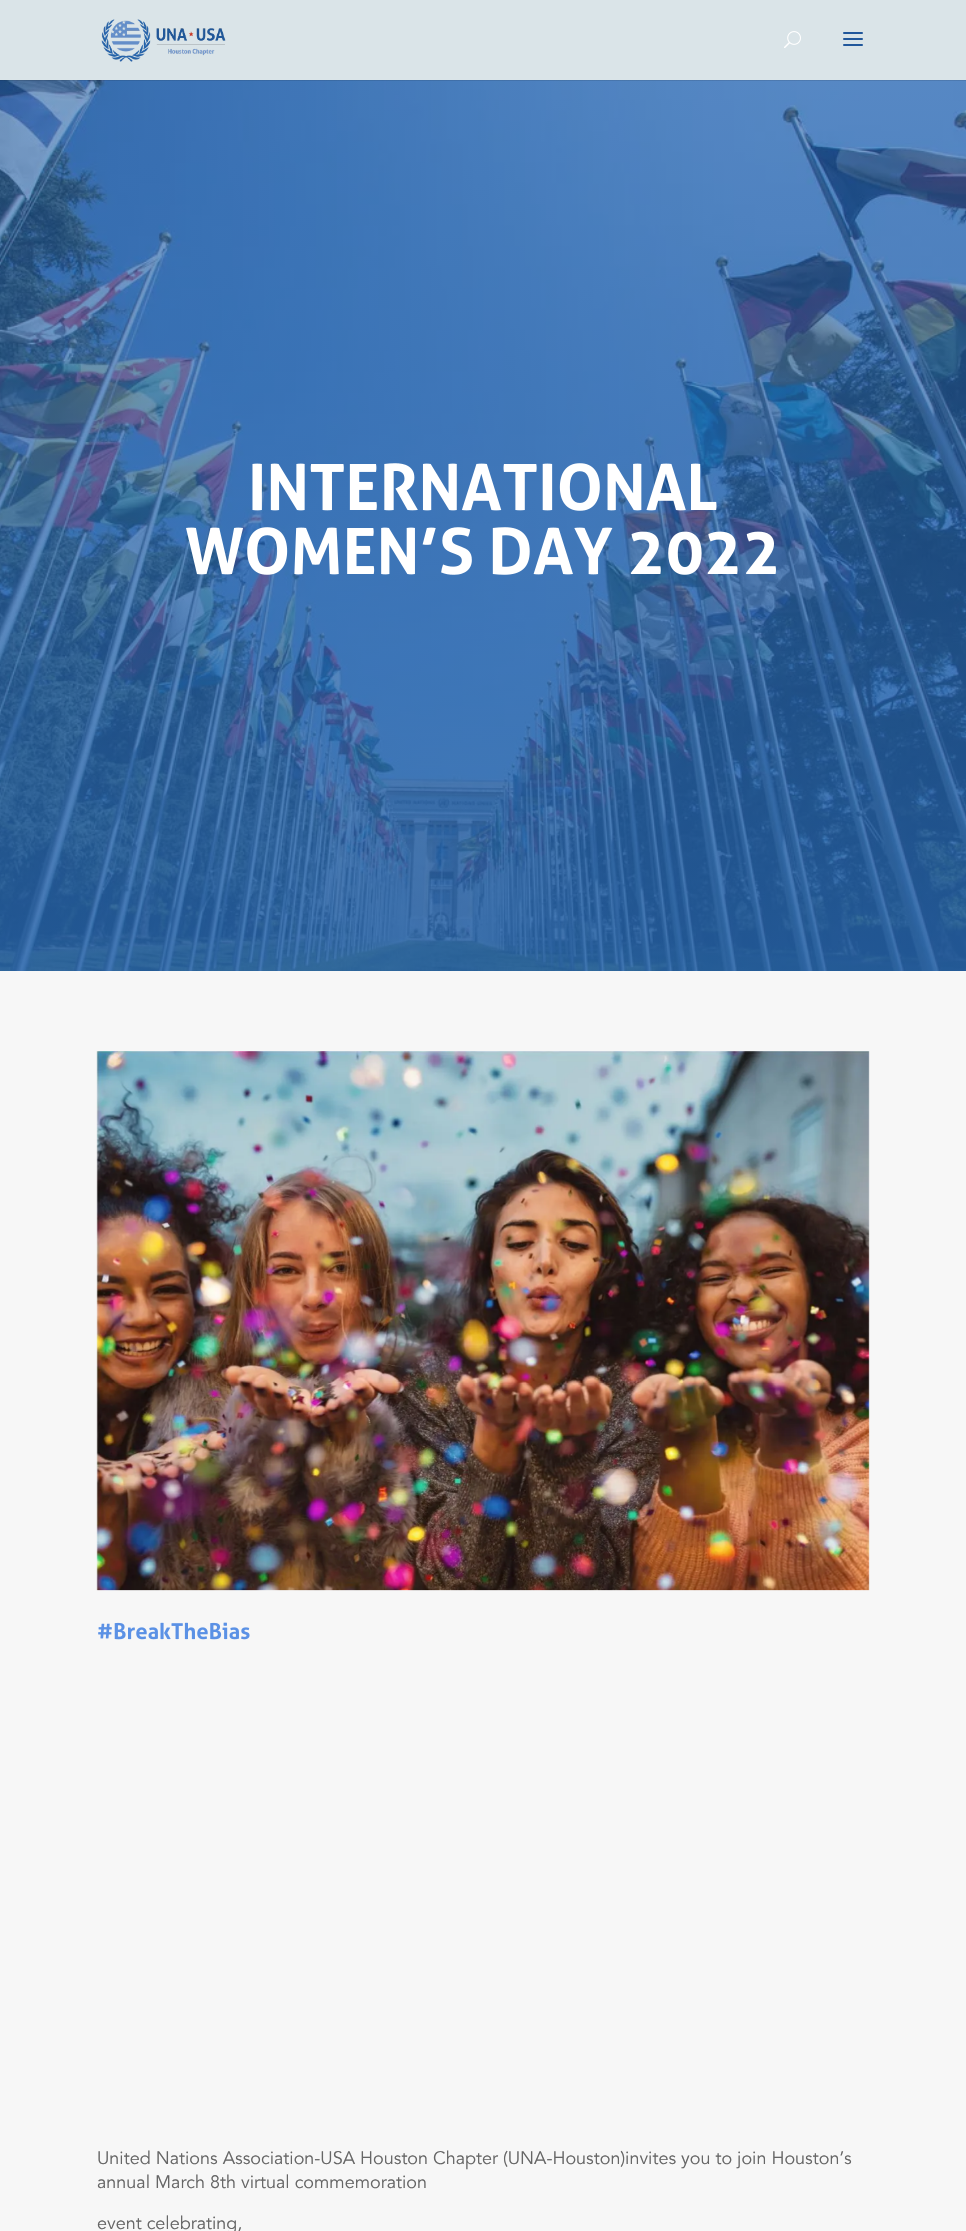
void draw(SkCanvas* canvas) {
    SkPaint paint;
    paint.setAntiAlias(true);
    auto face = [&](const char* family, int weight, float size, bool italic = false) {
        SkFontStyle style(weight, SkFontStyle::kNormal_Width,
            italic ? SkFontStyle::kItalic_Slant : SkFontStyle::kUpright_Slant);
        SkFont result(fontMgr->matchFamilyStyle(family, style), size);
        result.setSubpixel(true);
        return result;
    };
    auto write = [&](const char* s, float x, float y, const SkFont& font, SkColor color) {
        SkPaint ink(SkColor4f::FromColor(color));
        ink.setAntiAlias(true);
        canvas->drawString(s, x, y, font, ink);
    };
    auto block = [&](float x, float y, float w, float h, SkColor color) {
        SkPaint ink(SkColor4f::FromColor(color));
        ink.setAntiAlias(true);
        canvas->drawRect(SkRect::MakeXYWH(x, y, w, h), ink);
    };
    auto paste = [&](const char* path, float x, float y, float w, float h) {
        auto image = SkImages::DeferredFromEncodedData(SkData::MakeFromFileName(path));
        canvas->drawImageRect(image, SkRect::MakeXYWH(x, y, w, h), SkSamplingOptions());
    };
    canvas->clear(SK_ColorWHITE);
    paste("pic4.png", 0, 80, 966, 891);
    block(0, 80, 966, 1, SkColorSetARGB(26, 0, 0, 0));
    block(0, 0, 966, 80, SkColorSetRGB(218, 228, 232));
    paste("pic1.png", 101, 19, 125, 43);
    paste("pic2.png", 784, 31, 17, 17);
    paste("pic3.png", 843, 32, 20, 14);
    paste("pic5.png", 252, 463, 465, 48);
    paste("pic6.png", 186, 527, 590, 48);
    block(0, 971, 966, 1260, SkColorSetRGB(247, 247, 247));
    paste("pic7.png", 96, 1051, 774, 540);
    paste("pic8.png", 98, 1622, 152, 18);
    auto kFont1 = face("Avenir", 400, 18);
    write("United Nations Association-USA Houston Chapter (UNA-Houston)invites you to join Houston’s", 97, 2164, kFont1, SkColorSetRGB(102, 102, 102));
    write("annual March 8th virtual commemoration", 97, 2188, kFont1, SkColorSetRGB(102, 102, 102));
    write("event celebrating,", 97, 2229, kFont1, SkColorSetRGB(102, 102, 102));
}
